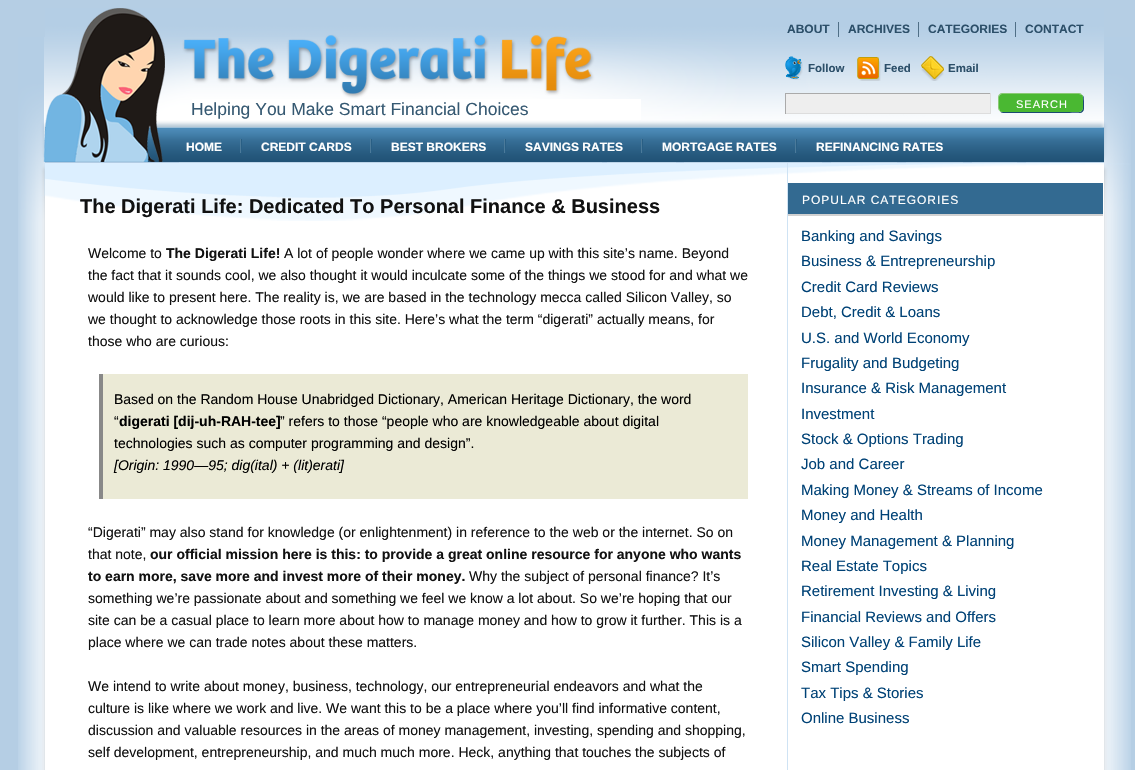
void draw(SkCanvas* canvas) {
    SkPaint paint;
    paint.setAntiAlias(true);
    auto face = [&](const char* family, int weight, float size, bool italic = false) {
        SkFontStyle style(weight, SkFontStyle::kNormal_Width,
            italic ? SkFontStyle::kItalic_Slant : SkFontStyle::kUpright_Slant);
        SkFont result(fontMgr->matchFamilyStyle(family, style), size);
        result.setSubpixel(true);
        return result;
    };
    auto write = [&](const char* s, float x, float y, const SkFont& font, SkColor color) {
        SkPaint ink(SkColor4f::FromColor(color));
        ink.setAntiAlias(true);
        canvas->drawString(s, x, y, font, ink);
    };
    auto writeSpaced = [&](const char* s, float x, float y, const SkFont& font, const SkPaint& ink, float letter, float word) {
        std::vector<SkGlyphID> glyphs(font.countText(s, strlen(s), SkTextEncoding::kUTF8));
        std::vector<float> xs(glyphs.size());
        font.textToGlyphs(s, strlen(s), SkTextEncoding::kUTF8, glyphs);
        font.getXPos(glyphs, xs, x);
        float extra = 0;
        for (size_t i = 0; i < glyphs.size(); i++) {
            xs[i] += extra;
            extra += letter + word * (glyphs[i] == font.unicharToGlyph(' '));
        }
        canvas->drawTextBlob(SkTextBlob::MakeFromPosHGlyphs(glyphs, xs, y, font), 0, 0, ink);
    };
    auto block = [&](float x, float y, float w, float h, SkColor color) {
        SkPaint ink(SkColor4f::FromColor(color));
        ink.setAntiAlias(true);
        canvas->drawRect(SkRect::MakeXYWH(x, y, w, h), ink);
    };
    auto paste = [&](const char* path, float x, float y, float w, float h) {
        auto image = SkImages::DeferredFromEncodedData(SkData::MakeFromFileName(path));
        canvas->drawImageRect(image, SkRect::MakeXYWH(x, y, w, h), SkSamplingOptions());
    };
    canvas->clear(SkColorSetRGB(181, 206, 228));
    paste("pic1.png", 18, 37, 1113, 733);
    block(45, 221, 1059, 549, SK_ColorWHITE);
    paste("pic2.png", 45, 8, 1059, 155);
    auto kFont1 = face("Liberation Sans", 700, 12);
    write("ABOUT", 787, 33, kFont1, SkColorSetRGB(44, 79, 105));
    block(838, 22, 1, 15, SkColorSetRGB(80, 111, 134));
    write("ARCHIVES", 848, 33, kFont1, SkColorSetRGB(44, 79, 105));
    block(918, 22, 1, 15, SkColorSetRGB(80, 111, 134));
    write("CATEGORIES", 928, 33, kFont1, SkColorSetRGB(44, 79, 105));
    block(1015, 22, 1, 15, SkColorSetRGB(80, 111, 134));
    write("CONTACT", 1025, 33, kFont1, SkColorSetRGB(44, 79, 105));
    paste("pic3.png", 785, 56, 18, 24);
    auto kFont2 = face("Liberation Sans", 700, 11.5f);
    write("Follow", 808, 72, kFont2, SkColorSetRGB(44, 79, 105));
    paste("pic4.png", 857, 57, 24, 24);
    write("Feed", 884, 72, kFont2, SkColorSetRGB(44, 79, 105));
    paste("pic5.png", 921, 56, 23, 25);
    write("Email", 948, 72, kFont2, SkColorSetRGB(44, 79, 105));
    block(192, 99, 449, 21, SK_ColorWHITE);
    auto kFont3 = face("Liberation Sans", 400, 17.5f);
    write("Helping You Make Smart Financial Choices", 191, 115, kFont3, SkColorSetRGB(54, 89, 114));
    block(786, 94, 204, 19, SkColorSetRGB(238, 238, 238));
    block(785, 93, 206, 1, SkColorSetRGB(170, 170, 170));
    block(990, 93, 1, 21, SkColorSetRGB(221, 221, 221));
    block(785, 113, 206, 1, SkColorSetRGB(221, 221, 221));
    block(785, 93, 1, 21, SkColorSetRGB(170, 170, 170));
    paint.setColor(SkColorSetRGB(27, 75, 114));
    canvas->drawPath(SkPathBuilder().moveTo(1000, 111).cubicTo(1000, 112, 1002, 113, 1003, 113).lineTo(1080, 113).cubicTo(1082, 113, 1084, 111, 1084, 109).lineTo(1084, 98).cubicTo(1084, 97, 1083, 95, 1082, 95).cubicTo(1084, 97, 1083, 100, 1083, 102).cubicTo(1083, 115, 1081, 112, 1066, 112).lineTo(1001, 112).close().detach(), paint);
    paint.setColor(SkColorSetRGB(74, 184, 50));
    canvas->drawPath(SkPathBuilder().moveTo(1002, 94).lineTo(1079, 94).cubicTo(1081, 94, 1083, 95, 1083, 97).lineTo(1083, 108).cubicTo(1083, 110, 1081, 112, 1079, 112).lineTo(1002, 112).cubicTo(1000, 112, 999, 110, 999, 108).lineTo(999, 97).cubicTo(999, 95, 1000, 94, 1002, 94).close().detach(), paint);
    paint.setColor(SkColorSetRGB(138, 202, 117));
    canvas->drawPath(SkPathBuilder(SkPathFillType::kEvenOdd).moveTo(1002, 93).lineTo(1079, 93).cubicTo(1081, 93, 1083, 95, 1083, 97).lineTo(1083, 108).cubicTo(1083, 110, 1081, 112, 1079, 112).lineTo(1002, 112).cubicTo(1000, 112, 998, 110, 998, 108).lineTo(998, 97).cubicTo(998, 95, 1000, 93, 1002, 93).close().moveTo(1002, 94).lineTo(1079, 94).cubicTo(1081, 94, 1083, 95, 1083, 97).lineTo(1083, 108).cubicTo(1083, 110, 1081, 112, 1079, 112).lineTo(1002, 112).cubicTo(1000, 112, 999, 110, 999, 108).lineTo(999, 97).cubicTo(999, 95, 1000, 94, 1002, 94).close().detach(), paint);
    auto kFont4 = face("Liberation Sans", 400, 11);
    paint.setColor(SK_ColorWHITE);
    writeSpaced("SEARCH", 1016, 108, kFont4, paint, 1, 0);
    block(240, 139, 1, 14, SkColorSetRGB(75, 122, 154));
    write("HOME", 186, 151, kFont1, SK_ColorWHITE);
    block(370, 139, 1, 14, SkColorSetRGB(75, 122, 154));
    block(241, 139, 1, 14, SkColorSetRGB(41, 95, 133));
    write("CREDIT CARDS", 261, 151, kFont1, SK_ColorWHITE);
    block(504, 139, 1, 14, SkColorSetRGB(75, 122, 154));
    block(371, 139, 1, 14, SkColorSetRGB(41, 95, 133));
    write("BEST BROKERS", 391, 151, kFont1, SK_ColorWHITE);
    block(641, 139, 1, 14, SkColorSetRGB(75, 122, 154));
    block(505, 139, 1, 14, SkColorSetRGB(41, 95, 133));
    write("SAVINGS RATES", 525, 151, kFont1, SK_ColorWHITE);
    block(795, 139, 1, 14, SkColorSetRGB(75, 122, 154));
    block(642, 139, 1, 14, SkColorSetRGB(41, 95, 133));
    write("MORTGAGE RATES", 662, 151, kFont1, SK_ColorWHITE);
    block(796, 139, 1, 14, SkColorSetRGB(41, 95, 133));
    write("REFINANCING RATES", 816, 151, kFont1, SK_ColorWHITE);
    paste("pic6.png", 45, 163, 1059, 58);
    auto kFont5 = face("Liberation Sans", 700, 20);
    write("The Digerati Life: Dedicated To Personal Finance & Business", 80, 213, kFont5, SkColorSetRGB(17, 17, 17));
    auto kFont6 = face("Liberation Sans", 400, 14);
    write("Welcome to", 88, 258, kFont6, SkColorSetRGB(17, 17, 17));
    auto kFont7 = face("Liberation Sans", 700, 14);
    write("The Digerati Life!", 166, 258, kFont7, SkColorSetRGB(17, 17, 17));
    write("A lot of people wonder where we came up with this site’s name. Beyond", 284, 258, kFont6, SkColorSetRGB(17, 17, 17));
    write("the fact that it sounds cool, we also thought it would inculcate some of the things we stood for and what we", 88, 280, kFont6, SkColorSetRGB(17, 17, 17));
    write("would like to present here. The reality is, we are based in the technology mecca called Silicon Valley, so", 88, 302, kFont6, SkColorSetRGB(17, 17, 17));
    write("we thought to acknowledge those roots in this site. Here’s what the term “digerati” actually means, for", 88, 324, kFont6, SkColorSetRGB(17, 17, 17));
    write("those who are curious:", 88, 346, kFont6, SkColorSetRGB(17, 17, 17));
    block(103, 374, 645, 125, SkColorSetRGB(235, 234, 214));
    block(99, 374, 4, 125, SkColorSetRGB(136, 136, 136));
    write("Based on the Random House Unabridged Dictionary, American Heritage Dictionary, the word", 114, 404, kFont6, SK_ColorBLACK);
    write("“", 114, 426, kFont6, SK_ColorBLACK);
    write("digerati [dij-uh-RAH-tee]", 119, 426, kFont7, SK_ColorBLACK);
    write("” refers to those “people who are knowledgeable about digital", 280, 426, kFont6, SK_ColorBLACK);
    write("technologies such as computer programming and design”.", 114, 448, kFont6, SK_ColorBLACK);
    auto kFont8 = face("Liberation Sans", 400, 14, true);
    write("[Origin: 1990—95; dig(ital) + (lit)erati]", 114, 470, kFont8, SK_ColorBLACK);
    write("“Digerati” may also stand for knowledge (or enlightenment) in reference to the web or the internet. So on", 88, 537, kFont6, SkColorSetRGB(17, 17, 17));
    write("that note,", 88, 559, kFont6, SkColorSetRGB(17, 17, 17));
    write("our official mission here is this: to provide a great online resource for anyone who wants", 150, 559, kFont7, SkColorSetRGB(17, 17, 17));
    write("to earn more, save more and invest more of their money.", 88, 581, kFont7, SkColorSetRGB(17, 17, 17));
    write("Why the subject of personal finance? It’s", 469, 581, kFont6, SkColorSetRGB(17, 17, 17));
    write("something we’re passionate about and something we feel we know a lot about. So we’re hoping that our", 88, 603, kFont6, SkColorSetRGB(17, 17, 17));
    write("site can be a casual place to learn more about how to manage money and how to grow it further. This is a", 88, 625, kFont6, SkColorSetRGB(17, 17, 17));
    write("place where we can trade notes about these matters.", 88, 647, kFont6, SkColorSetRGB(17, 17, 17));
    write("We intend to write about money, business, technology, our entrepreneurial endeavors and what the", 88, 691, kFont6, SkColorSetRGB(17, 17, 17));
    write("culture is like where we work and live. We want this to be a place where you’ll find informative content,", 88, 713, kFont6, SkColorSetRGB(17, 17, 17));
    write("discussion and valuable resources in the areas of money management, investing, spending and shopping,", 88, 735, kFont6, SkColorSetRGB(17, 17, 17));
    write("self development, entrepreneurship, and much much more. Heck, anything that touches the subjects of", 88, 757, kFont6, SkColorSetRGB(17, 17, 17));
    block(787, 163, 1, 607, SkColorSetRGB(207, 227, 244));
    block(788, 183, 315, 31, SkColorSetRGB(51, 106, 145));
    block(788, 214, 315, 2, SkColorSetRGB(209, 209, 209));
    auto kFont9 = face("Liberation Sans", 400, 12);
    writeSpaced("POPULAR CATEGORIES", 802, 204, kFont9, paint, 1, 0);
    auto kFont10 = face("Liberation Sans", 400, 15);
    write("Banking and Savings", 801, 241, kFont10, SkColorSetRGB(0, 66, 118));
    write("Business & Entrepreneurship", 801, 266, kFont10, SkColorSetRGB(0, 66, 118));
    write("Credit Card Reviews", 801, 292, kFont10, SkColorSetRGB(0, 66, 118));
    write("Debt, Credit & Loans", 801, 317, kFont10, SkColorSetRGB(0, 66, 118));
    write("U.S. and World Economy", 801, 343, kFont10, SkColorSetRGB(0, 66, 118));
    write("Frugality and Budgeting", 801, 368, kFont10, SkColorSetRGB(0, 66, 118));
    write("Insurance & Risk Management", 801, 393, kFont10, SkColorSetRGB(0, 66, 118));
    write("Investment", 801, 419, kFont10, SkColorSetRGB(0, 66, 118));
    write("Stock & Options Trading", 801, 444, kFont10, SkColorSetRGB(0, 66, 118));
    write("Job and Career", 801, 469, kFont10, SkColorSetRGB(0, 66, 118));
    write("Making Money & Streams of Income", 801, 495, kFont10, SkColorSetRGB(0, 66, 118));
    write("Money and Health", 801, 520, kFont10, SkColorSetRGB(0, 66, 118));
    write("Money Management & Planning", 801, 546, kFont10, SkColorSetRGB(0, 66, 118));
    write("Real Estate Topics", 801, 571, kFont10, SkColorSetRGB(0, 66, 118));
    write("Retirement Investing & Living", 801, 596, kFont10, SkColorSetRGB(0, 66, 118));
    write("Financial Reviews and Offers", 801, 622, kFont10, SkColorSetRGB(0, 66, 118));
    write("Silicon Valley & Family Life", 801, 647, kFont10, SkColorSetRGB(0, 66, 118));
    write("Smart Spending", 801, 672, kFont10, SkColorSetRGB(0, 66, 118));
    write("Tax Tips & Stories", 801, 698, kFont10, SkColorSetRGB(0, 66, 118));
    write("Online Business", 801, 723, kFont10, SkColorSetRGB(0, 66, 118));
}
